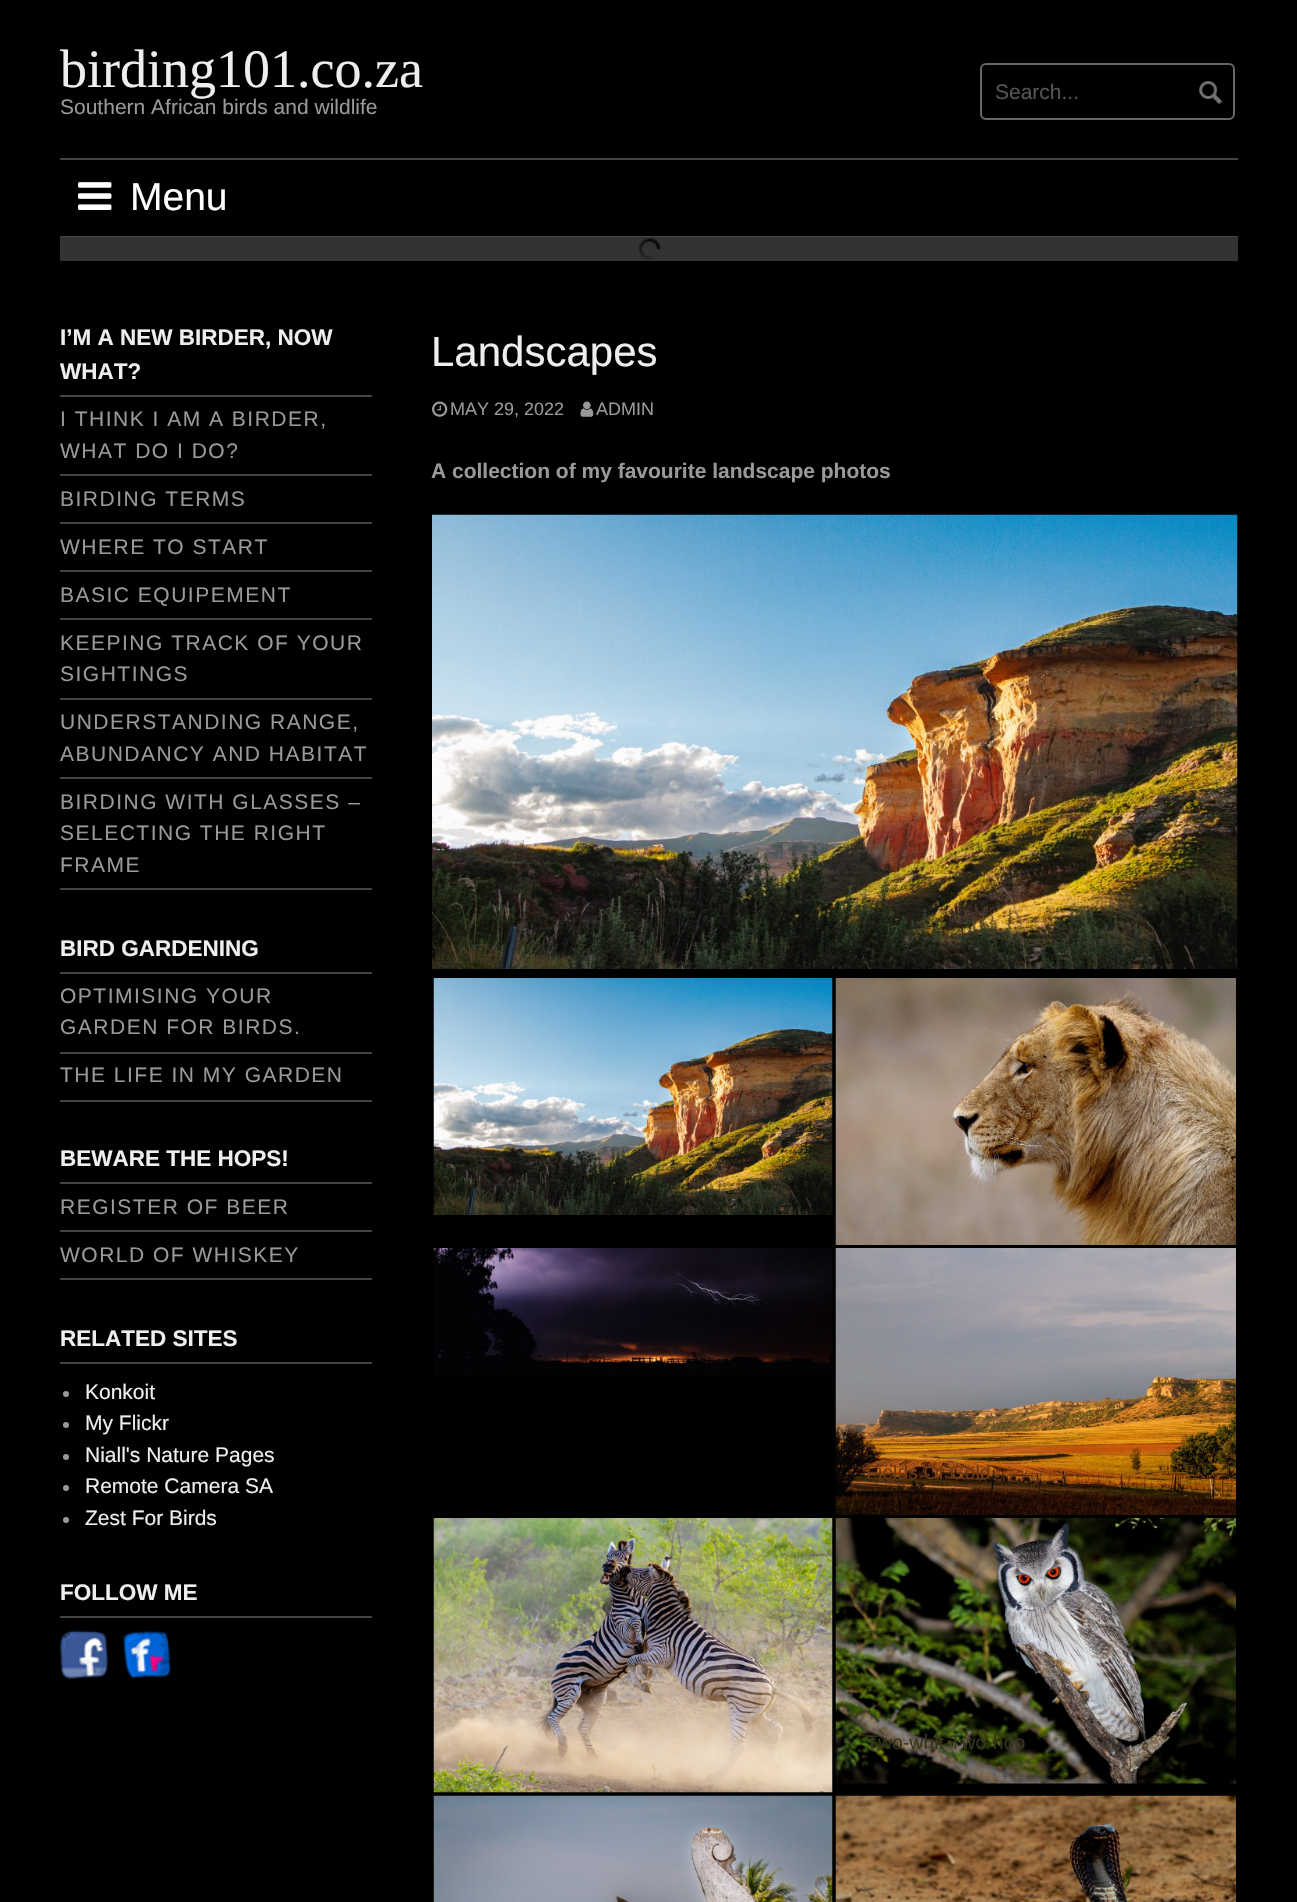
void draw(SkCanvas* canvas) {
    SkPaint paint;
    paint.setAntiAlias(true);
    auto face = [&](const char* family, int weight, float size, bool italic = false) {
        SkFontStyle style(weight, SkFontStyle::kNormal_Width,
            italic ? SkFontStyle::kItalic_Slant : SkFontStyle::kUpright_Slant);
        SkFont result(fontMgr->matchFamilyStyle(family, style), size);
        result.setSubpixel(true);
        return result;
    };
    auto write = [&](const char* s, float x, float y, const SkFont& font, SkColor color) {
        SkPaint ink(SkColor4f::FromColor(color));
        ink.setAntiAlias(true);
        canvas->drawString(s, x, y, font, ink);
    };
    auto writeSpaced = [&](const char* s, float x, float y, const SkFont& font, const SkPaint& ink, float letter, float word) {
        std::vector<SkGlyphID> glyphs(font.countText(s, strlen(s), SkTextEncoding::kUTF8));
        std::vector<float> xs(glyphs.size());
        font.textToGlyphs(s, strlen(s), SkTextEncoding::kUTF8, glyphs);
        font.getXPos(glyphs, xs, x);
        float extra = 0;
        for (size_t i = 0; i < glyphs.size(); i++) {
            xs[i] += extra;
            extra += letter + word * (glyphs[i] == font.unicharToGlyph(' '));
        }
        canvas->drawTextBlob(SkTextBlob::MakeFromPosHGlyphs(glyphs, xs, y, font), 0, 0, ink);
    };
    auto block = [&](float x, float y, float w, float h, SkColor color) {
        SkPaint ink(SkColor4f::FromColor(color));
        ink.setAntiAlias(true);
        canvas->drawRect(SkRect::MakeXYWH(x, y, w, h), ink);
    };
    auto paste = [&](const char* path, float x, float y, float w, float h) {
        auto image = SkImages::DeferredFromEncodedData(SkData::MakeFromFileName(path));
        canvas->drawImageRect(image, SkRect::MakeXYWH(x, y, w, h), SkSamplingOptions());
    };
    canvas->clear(SK_ColorBLACK);
    auto kFont1 = face("Liberation Serif", 400, 54);
    write("birding101.co.za", 60, 87, kFont1, SkColorSetRGB(238, 238, 238));
    auto kFont2 = face("Liberation Sans", 400, 21);
    write("Southern African birds and wildlife", 60, 114, kFont2, SkColorSetRGB(153, 153, 153));
    paint.setStyle(SkPaint::kStroke_Style);
    paint.setStrokeWidth(2);
    paint.setColor(SkColorSetRGB(102, 102, 102));
    canvas->drawRoundRect(SkRect::MakeXYWH(981, 64, 253, 55), 5, 5, paint);
    write("Search...", 995, 99, kFont2, SkColorSetRGB(85, 85, 85));
    paste("pic1.png", 1199, 81, 23, 24);
    block(60, 158, 1178, 2, SkColorSetRGB(68, 68, 68));
    block(60, 236, 1178, 1, SkColorSetRGB(68, 68, 68));
    paste("pic2.png", 78, 182, 34, 28);
    auto kFont3 = face("Liberation Sans", 400, 39);
    write("Menu", 130, 210, kFont3, SK_ColorWHITE);
    block(60, 237, 1178, 24, SkColorSetRGB(51, 51, 51));
    paste("pic3.png", 638, 238, 23, 22);
    block(60, 395, 312, 2, SkColorSetRGB(68, 68, 68));
    auto kFont4 = face("Liberation Sans", 700, 22.5f);
    write("I’M A NEW BIRDER, NOW", 60, 345, kFont4, SkColorSetRGB(238, 238, 238));
    write("WHAT?", 60, 379, kFont4, SkColorSetRGB(238, 238, 238));
    block(60, 474, 312, 2, SkColorSetRGB(68, 68, 68));
    paint.setStyle(SkPaint::kFill_Style);
    paint.setColor(SkColorSetRGB(153, 153, 153));
    writeSpaced("I THINK I AM A BIRDER,", 60, 426, kFont2, paint, 1.5f, 0);
    writeSpaced("WHAT DO I DO?", 60, 458, kFont2, paint, 1.5f, 0);
    block(60, 522, 312, 2, SkColorSetRGB(68, 68, 68));
    writeSpaced("BIRDING TERMS", 60, 506, kFont2, paint, 1.5f, 0);
    block(60, 570, 312, 2, SkColorSetRGB(68, 68, 68));
    writeSpaced("WHERE TO START", 60, 554, kFont2, paint, 1.5f, 0);
    block(60, 618, 312, 2, SkColorSetRGB(68, 68, 68));
    writeSpaced("BASIC EQUIPEMENT", 60, 602, kFont2, paint, 1.5f, 0);
    block(60, 698, 312, 2, SkColorSetRGB(68, 68, 68));
    writeSpaced("KEEPING TRACK OF YOUR", 60, 650, kFont2, paint, 1.5f, 0);
    writeSpaced("SIGHTINGS", 60, 681, kFont2, paint, 1.5f, 0);
    block(60, 777, 312, 2, SkColorSetRGB(68, 68, 68));
    writeSpaced("UNDERSTANDING RANGE,", 60, 729, kFont2, paint, 1.5f, 0);
    writeSpaced("ABUNDANCY AND HABITAT", 60, 761, kFont2, paint, 1.5f, 0);
    block(60, 888, 312, 2, SkColorSetRGB(68, 68, 68));
    writeSpaced("BIRDING WITH GLASSES –", 60, 809, kFont2, paint, 1.5f, 0);
    writeSpaced("SELECTING THE RIGHT", 60, 840, kFont2, paint, 1.5f, 0);
    writeSpaced("FRAME", 60, 872, kFont2, paint, 1.5f, 0);
    block(60, 972, 312, 2, SkColorSetRGB(68, 68, 68));
    write("BIRD GARDENING", 60, 956, kFont4, SkColorSetRGB(238, 238, 238));
    block(60, 1052, 312, 2, SkColorSetRGB(68, 68, 68));
    writeSpaced("OPTIMISING YOUR", 60, 1003, kFont2, paint, 1.5f, 0);
    writeSpaced("GARDEN FOR BIRDS.", 60, 1034, kFont2, paint, 1.5f, 0);
    block(60, 1100, 312, 2, SkColorSetRGB(68, 68, 68));
    writeSpaced("THE LIFE IN MY GARDEN", 60, 1082, kFont2, paint, 1.5f, 0);
    block(60, 1182, 312, 2, SkColorSetRGB(68, 68, 68));
    write("BEWARE THE HOPS!", 60, 1166, kFont4, SkColorSetRGB(238, 238, 238));
    block(60, 1230, 312, 2, SkColorSetRGB(68, 68, 68));
    writeSpaced("REGISTER OF BEER", 60, 1214, kFont2, paint, 1.5f, 0);
    block(60, 1278, 312, 2, SkColorSetRGB(68, 68, 68));
    writeSpaced("WORLD OF WHISKEY", 60, 1262, kFont2, paint, 1.5f, 0);
    block(60, 1362, 312, 2, SkColorSetRGB(68, 68, 68));
    write("RELATED SITES", 60, 1346, kFont4, SkColorSetRGB(238, 238, 238));
    canvas->drawCircle(66, 1394, 3, paint);
    write("Konkoit", 85, 1399, kFont2, SkColorSetRGB(238, 238, 238));
    canvas->drawCircle(66, 1425, 3, paint);
    write("My Flickr", 85, 1430, kFont2, SkColorSetRGB(238, 238, 238));
    canvas->drawCircle(66, 1457, 3, paint);
    write("Niall's Nature Pages", 85, 1462, kFont2, SkColorSetRGB(238, 238, 238));
    canvas->drawCircle(66, 1488, 3, paint);
    write("Remote Camera SA", 85, 1493, kFont2, SkColorSetRGB(238, 238, 238));
    canvas->drawCircle(66, 1520, 3, paint);
    write("Zest For Birds", 85, 1525, kFont2, SkColorSetRGB(238, 238, 238));
    block(60, 1616, 312, 2, SkColorSetRGB(68, 68, 68));
    write("FOLLOW ME", 60, 1600, kFont4, SkColorSetRGB(238, 238, 238));
    paste("pic4.png", 60, 1630, 48, 49);
    paste("pic5.png", 123, 1630, 48, 49);
    auto kFont5 = face("Liberation Sans", 400, 42);
    write("Landscapes", 431, 366, kFont5, SkColorSetRGB(238, 238, 238));
    paste("pic6.png", 432, 401, 16, 16);
    auto kFont6 = face("Liberation Sans", 400, 18);
    write("MAY 29, 2022", 450, 415, kFont6, SkColorSetRGB(153, 153, 153));
    paste("pic7.png", 580, 401, 14, 16);
    write("ADMIN", 596, 415, kFont6, SkColorSetRGB(153, 153, 153));
    auto kFont7 = face("Liberation Sans", 700, 21);
    write("A collection of my favourite landscape photos", 431, 478, kFont7, SkColorSetRGB(153, 153, 153));
    paste("pic8.png", 432, 514, 806, 455);
    paste("pic9.png", 433, 978, 400, 237);
    paste("pic10.png", 835, 978, 401, 267);
    paste("pic11.png", 433, 1248, 400, 129);
    paste("pic12.png", 835, 1248, 401, 267);
    auto kFont8 = face("Liberation Sans", 400, 19.5f);
    write("Fields Of Gold", 866, 1479, kFont8, SkColorSetRGB(111, 56, 15));
    paste("pic13.png", 433, 1518, 400, 275);
    paste("pic14.png", 835, 1518, 401, 266);
    write("Two-whit Two-hoo", 866, 1749, kFont8, SkColorSetRGB(53, 53, 31));
    paste("pic15.png", 433, 1795, 400, 107);
    paste("pic16.png", 835, 1795, 401, 107);
}
